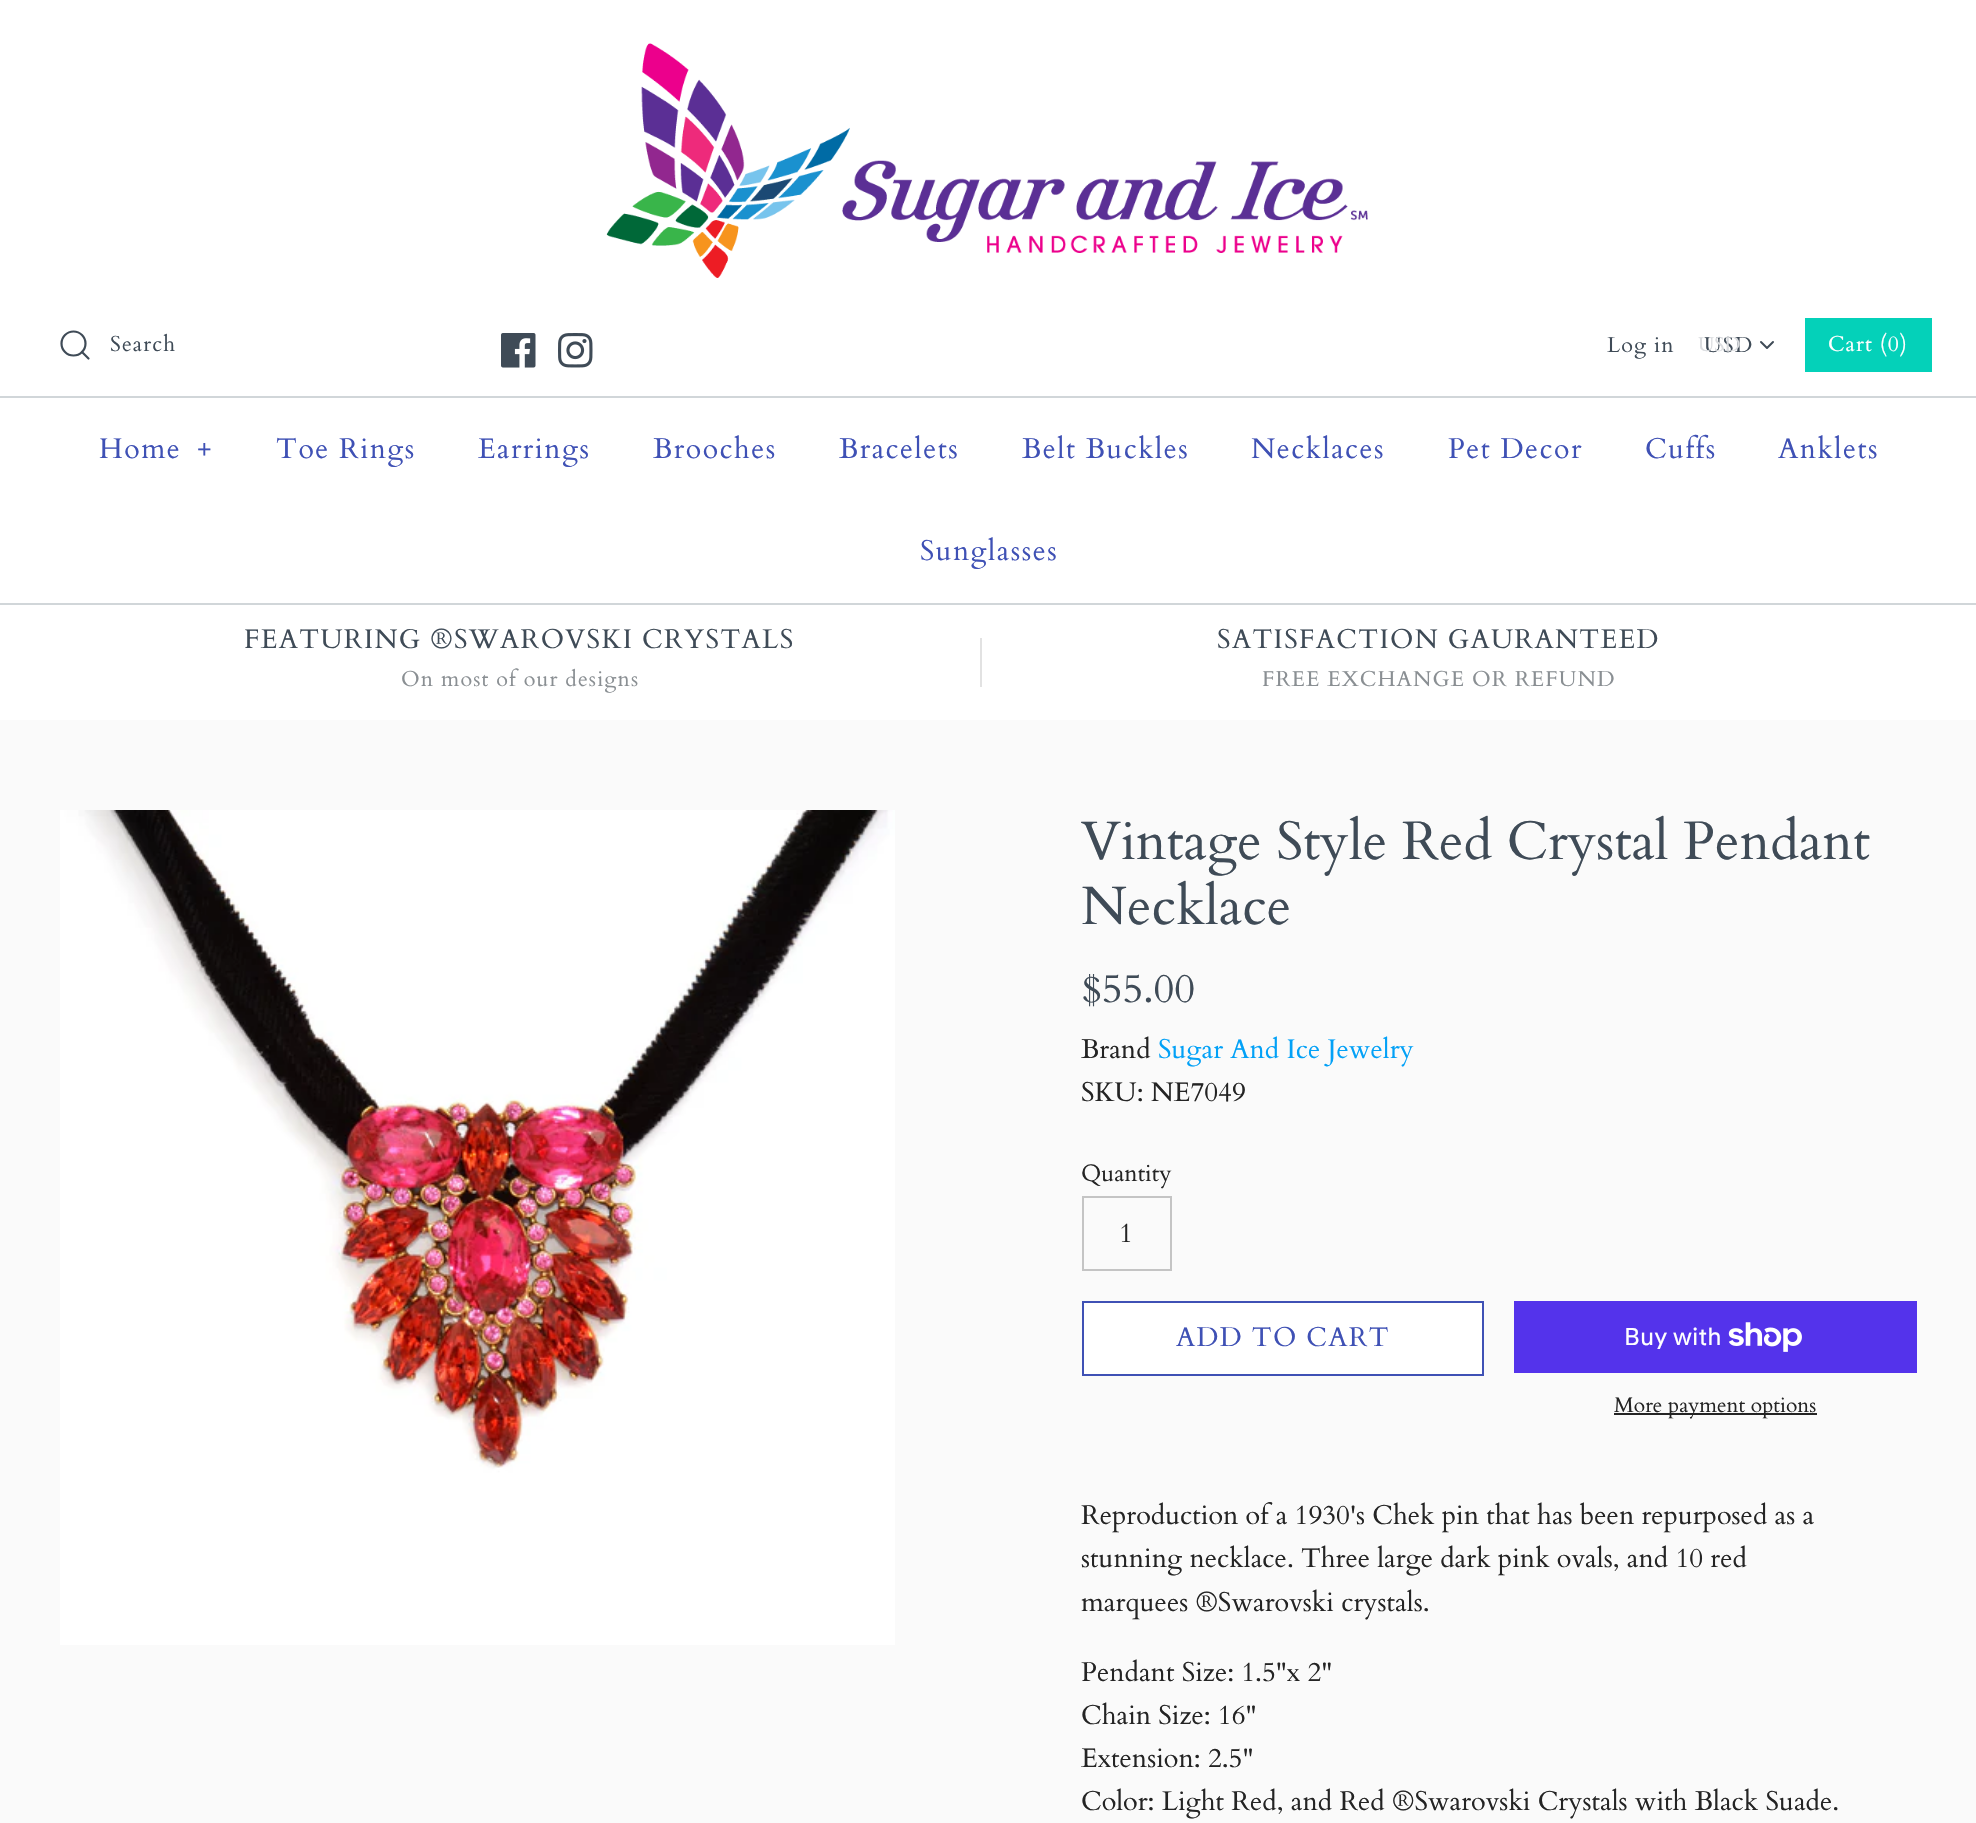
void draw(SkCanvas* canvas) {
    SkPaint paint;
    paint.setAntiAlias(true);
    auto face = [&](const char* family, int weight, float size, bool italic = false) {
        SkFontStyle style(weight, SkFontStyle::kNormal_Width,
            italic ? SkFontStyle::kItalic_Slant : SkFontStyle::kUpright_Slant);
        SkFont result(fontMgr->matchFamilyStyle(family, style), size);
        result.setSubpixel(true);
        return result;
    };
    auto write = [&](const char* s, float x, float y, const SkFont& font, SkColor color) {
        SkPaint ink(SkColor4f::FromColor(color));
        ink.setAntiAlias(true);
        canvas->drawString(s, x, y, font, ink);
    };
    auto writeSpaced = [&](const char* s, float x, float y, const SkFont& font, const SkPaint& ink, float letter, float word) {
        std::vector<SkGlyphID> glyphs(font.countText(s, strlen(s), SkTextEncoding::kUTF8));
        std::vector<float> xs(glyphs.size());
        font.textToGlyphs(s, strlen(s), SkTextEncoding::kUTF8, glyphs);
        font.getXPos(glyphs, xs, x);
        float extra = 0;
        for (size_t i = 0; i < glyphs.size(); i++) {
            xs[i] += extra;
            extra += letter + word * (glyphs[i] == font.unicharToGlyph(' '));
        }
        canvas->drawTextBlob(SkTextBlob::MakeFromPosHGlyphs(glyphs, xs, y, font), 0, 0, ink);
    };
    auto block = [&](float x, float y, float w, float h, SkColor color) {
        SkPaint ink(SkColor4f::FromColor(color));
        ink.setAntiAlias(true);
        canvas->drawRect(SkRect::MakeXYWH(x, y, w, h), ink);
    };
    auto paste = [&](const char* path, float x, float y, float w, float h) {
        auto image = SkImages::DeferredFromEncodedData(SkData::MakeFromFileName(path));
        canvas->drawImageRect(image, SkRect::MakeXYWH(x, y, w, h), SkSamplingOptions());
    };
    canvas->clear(SkColorSetRGB(250, 250, 250));
    block(0, 0, 1976, 396, SK_ColorWHITE);
    paste("pic1.png", 606, 43, 762, 235);
    paint.setStyle(SkPaint::kStroke_Style);
    paint.setStrokeWidth(2.2f);
    paint.setColor(SkColorSetRGB(63, 75, 87));
    canvas->drawCircle(73.5f, 343.5f, 12, paint);
    paint.setStrokeCap(SkPaint::kRound_Cap);
    paint.setStrokeJoin(SkPaint::kRound_Join);
    canvas->drawPath(SkPathBuilder().moveTo(88.5f, 358.5f).lineTo(82, 352).detach(), paint);
    auto kFont1 = face("Cardo", 400, 21.6f);
    paint.setStyle(SkPaint::kFill_Style);
    writeSpaced("Search", 110, 351, kFont1, paint, 1.1f, 0);
    paste("pic2.png", 501, 333, 35, 35);
    paste("pic3.png", 558, 333, 35, 35);
    writeSpaced("Log in", 1607, 352, kFont1, paint, 1.1f, 0);
    writeSpaced("USD", 1704, 352, kFont1, paint, 1.1f, 0);
    auto kFont2 = face("Cardo", 400, 20);
    write("USD", 1698, 351, kFont2, SkColorSetRGB(218, 220, 223));
    paint.setStyle(SkPaint::kStroke_Style);
    paint.setStrokeWidth(2);
    canvas->drawPath(SkPathBuilder().moveTo(1761, 342).lineTo(1767, 348).lineTo(1773, 342).detach(), paint);
    block(1805, 318, 127, 54, SkColorSetRGB(4, 209, 185));
    paint.setStyle(SkPaint::kFill_Style);
    paint.setColor(SK_ColorWHITE);
    writeSpaced("Cart (0)", 1828, 351, kFont1, paint, 1.1f, 0);
    block(0, 603, 1976, 2, SkColorSetRGB(209, 214, 217));
    block(0, 398, 1976, 205, SK_ColorWHITE);
    block(0, 396, 1976, 2, SkColorSetRGB(209, 214, 217));
    auto kFont3 = face("Cardo", 400, 28.5f);
    paint.setColor(SkColorSetRGB(63, 81, 181));
    writeSpaced("Home", 99, 458, kFont3, paint, 1.5f, 0);
    writeSpaced("+", 197, 458, kFont3, paint, 1.5f, 0);
    writeSpaced("Toe Rings", 276, 458, kFont3, paint, 1.5f, 0);
    writeSpaced("Earrings", 478, 458, kFont3, paint, 1.5f, 0);
    writeSpaced("Brooches", 653, 458, kFont3, paint, 1.5f, 0);
    writeSpaced("Bracelets", 839, 458, kFont3, paint, 1.5f, 0);
    writeSpaced("Belt Buckles", 1022, 458, kFont3, paint, 1.5f, 0);
    writeSpaced("Necklaces", 1251, 458, kFont3, paint, 1.5f, 0);
    writeSpaced("Pet Decor", 1448, 458, kFont3, paint, 1.5f, 0);
    writeSpaced("Cuffs", 1645, 458, kFont3, paint, 1.5f, 0);
    writeSpaced("Anklets", 1778, 458, kFont3, paint, 1.5f, 0);
    writeSpaced("Sunglasses", 920, 560, kFont3, paint, 1.5f, 0);
    block(0, 605, 1976, 115, SK_ColorWHITE);
    auto kFont4 = face("Cardo", 400, 27);
    paint.setColor(SkColorSetRGB(63, 75, 87));
    writeSpaced("FEATURING ®SWAROVSKI CRYSTALS", 244, 648, kFont4, paint, 1.35f, 0);
    paint.setColor(SkColorSetRGB(138, 143, 147));
    writeSpaced("On most of our designs", 401, 686, kFont1, paint, 1.1f, 0);
    block(980, 638, 2, 49, SkColorSetRGB(226, 226, 226));
    paint.setColor(SkColorSetRGB(63, 75, 87));
    writeSpaced("SATISFACTION GAURANTEED", 1217, 648, kFont4, paint, 1.35f, 0);
    paint.setColor(SkColorSetRGB(138, 143, 147));
    writeSpaced("FREE EXCHANGE OR REFUND", 1262, 686, kFont1, paint, 1.1f, 0);
    paste("pic4.png", 60, 810, 835, 835);
    auto kFont5 = face("Cardo", 400, 54);
    write("Vintage Style Red Crystal Pendant", 1081, 859, kFont5, SkColorSetRGB(63, 75, 87));
    write("Necklace", 1081, 924, kFont5, SkColorSetRGB(63, 75, 87));
    auto kFont6 = face("Cardo", 400, 40.5f);
    write("$55.00", 1081, 1002, kFont6, SkColorSetRGB(63, 75, 87));
    write("Brand", 1081, 1058, kFont4, SkColorSetRGB(36, 36, 36));
    write("Sugar And Ice Jewelry", 1158, 1058, kFont4, SkColorSetRGB(2, 161, 247));
    write("SKU: NE7049", 1081, 1101, kFont4, SkColorSetRGB(36, 36, 36));
    auto kFont7 = face("Cardo", 400, 23.5f);
    write("Quantity", 1081, 1181, kFont7, SkColorSetRGB(36, 36, 36));
    paint.setStyle(SkPaint::kStroke_Style);
    paint.setStrokeCap(SkPaint::kButt_Cap);
    paint.setStrokeJoin(SkPaint::kMiter_Join);
    paint.setColor(SkColorSetRGB(196, 196, 196));
    canvas->drawRect(SkRect::MakeXYWH(1083, 1197, 88, 73), paint);
    write("1", 1119, 1242, kFont4, SkColorSetRGB(36, 36, 36));
    paint.setStyle(SkPaint::kFill_Style);
    paint.setColor(SK_ColorWHITE);
    canvas->drawRect(SkRect::MakeXYWH(1083, 1302, 400, 73), paint);
    paint.setStyle(SkPaint::kStroke_Style);
    paint.setColor(SkColorSetRGB(63, 81, 181));
    canvas->drawRect(SkRect::MakeXYWH(1083, 1302, 400, 73), paint);
    paint.setStyle(SkPaint::kFill_Style);
    writeSpaced("ADD TO CART", 1176, 1346, kFont4, paint, 1.35f, 0);
    block(1514, 1301, 403, 72, SkColorSetRGB(84, 51, 235));
    auto kFont8 = face("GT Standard", 400, 24);
    write("Buy with", 1624, 1345, kFont8, SK_ColorWHITE);
    paste("pic5.png", 1728, 1322, 74, 30);
    block(1614, 1413, 203, 2, SkColorSetRGB(36, 36, 36));
    auto kFont9 = face("Cardo", 400, 21);
    write("More payment options", 1614, 1412, kFont9, SkColorSetRGB(36, 36, 36));
    write("Reproduction of a 1930's Chek pin that has been repurposed as a", 1081, 1524, kFont4, SkColorSetRGB(36, 36, 36));
    write("stunning necklace. Three large dark pink ovals, and 10 red", 1081, 1567, kFont4, SkColorSetRGB(36, 36, 36));
    write("marquees ®Swarovski crystals.", 1081, 1611, kFont4, SkColorSetRGB(36, 36, 36));
    write("Pendant Size: 1.5\"x 2\"", 1081, 1681, kFont4, SkColorSetRGB(36, 36, 36));
    write("Chain Size: 16\"", 1081, 1724, kFont4, SkColorSetRGB(36, 36, 36));
    write("Extension: 2.5\"", 1081, 1767, kFont4, SkColorSetRGB(36, 36, 36));
    write("Color: Light Red, and Red ®Swarovski Crystals with Black Suade.", 1081, 1810, kFont4, SkColorSetRGB(36, 36, 36));
}
